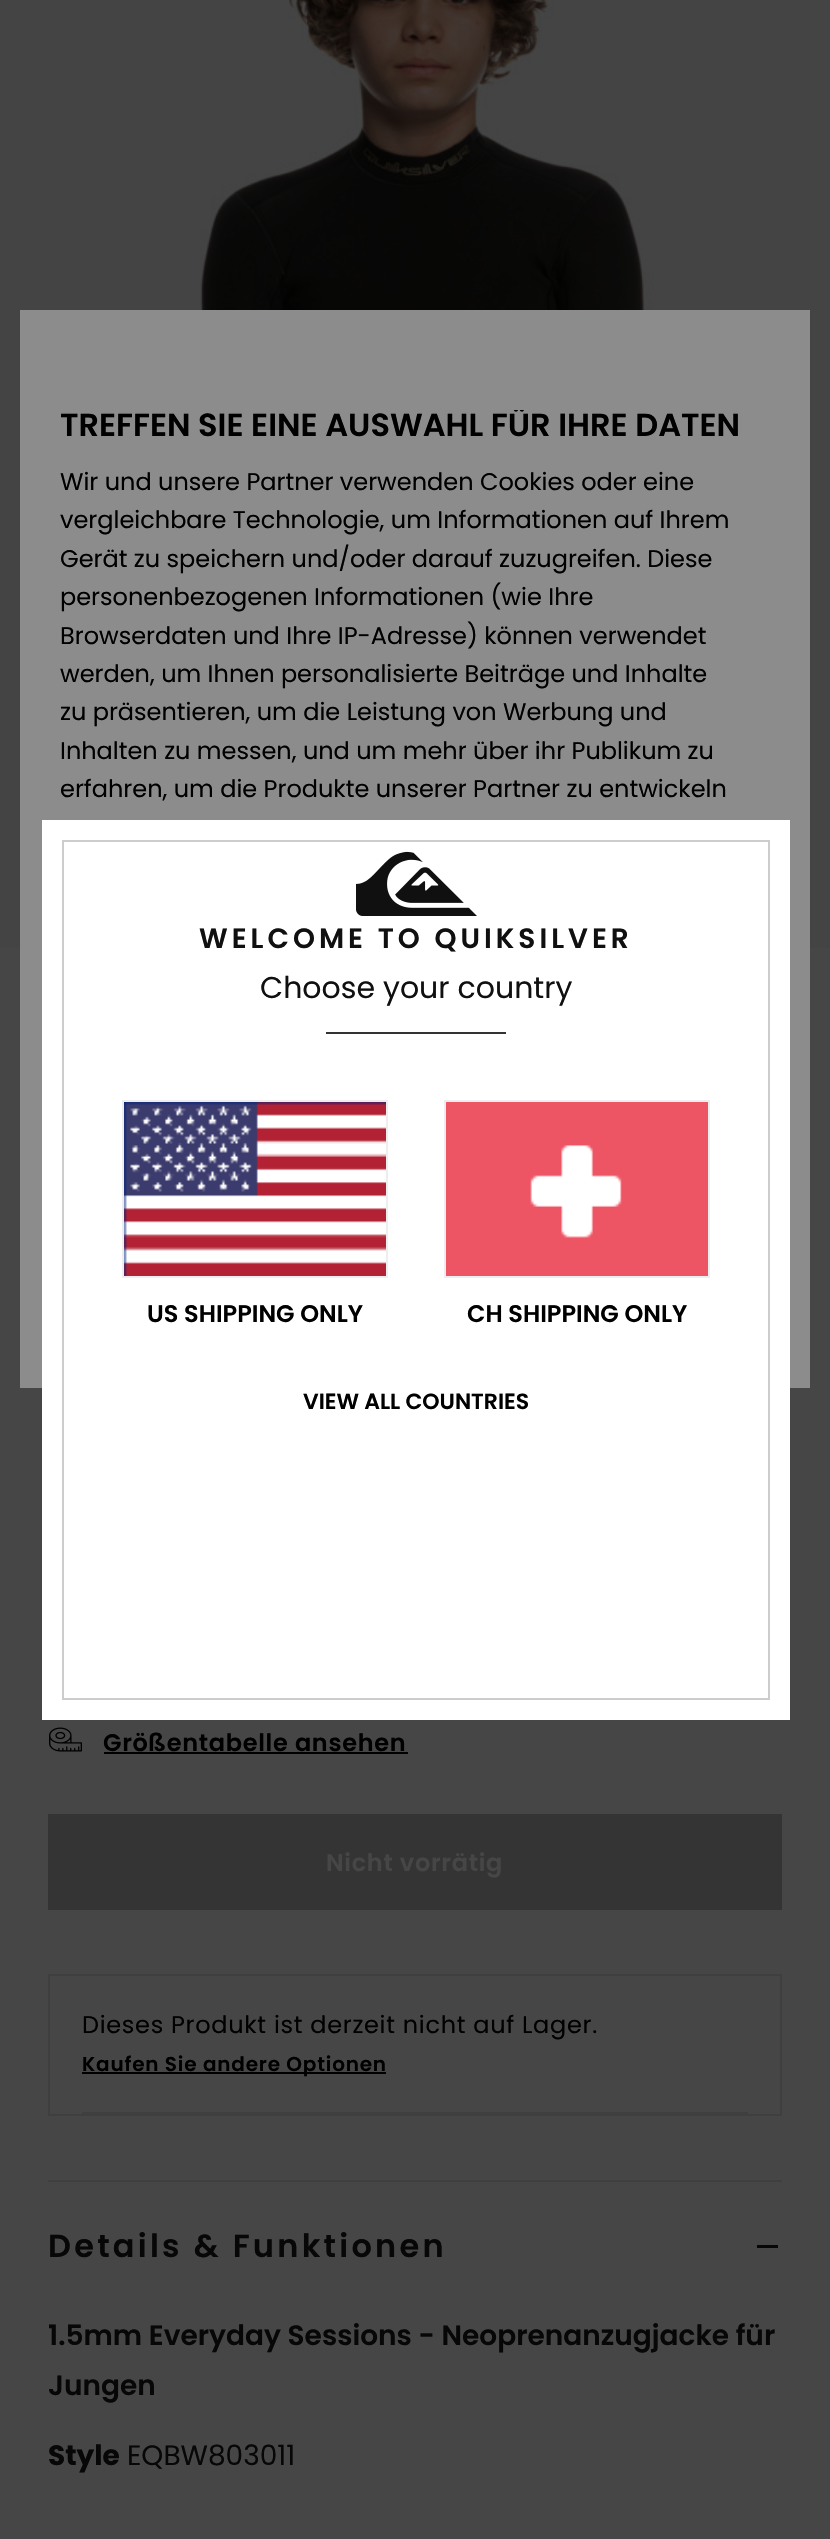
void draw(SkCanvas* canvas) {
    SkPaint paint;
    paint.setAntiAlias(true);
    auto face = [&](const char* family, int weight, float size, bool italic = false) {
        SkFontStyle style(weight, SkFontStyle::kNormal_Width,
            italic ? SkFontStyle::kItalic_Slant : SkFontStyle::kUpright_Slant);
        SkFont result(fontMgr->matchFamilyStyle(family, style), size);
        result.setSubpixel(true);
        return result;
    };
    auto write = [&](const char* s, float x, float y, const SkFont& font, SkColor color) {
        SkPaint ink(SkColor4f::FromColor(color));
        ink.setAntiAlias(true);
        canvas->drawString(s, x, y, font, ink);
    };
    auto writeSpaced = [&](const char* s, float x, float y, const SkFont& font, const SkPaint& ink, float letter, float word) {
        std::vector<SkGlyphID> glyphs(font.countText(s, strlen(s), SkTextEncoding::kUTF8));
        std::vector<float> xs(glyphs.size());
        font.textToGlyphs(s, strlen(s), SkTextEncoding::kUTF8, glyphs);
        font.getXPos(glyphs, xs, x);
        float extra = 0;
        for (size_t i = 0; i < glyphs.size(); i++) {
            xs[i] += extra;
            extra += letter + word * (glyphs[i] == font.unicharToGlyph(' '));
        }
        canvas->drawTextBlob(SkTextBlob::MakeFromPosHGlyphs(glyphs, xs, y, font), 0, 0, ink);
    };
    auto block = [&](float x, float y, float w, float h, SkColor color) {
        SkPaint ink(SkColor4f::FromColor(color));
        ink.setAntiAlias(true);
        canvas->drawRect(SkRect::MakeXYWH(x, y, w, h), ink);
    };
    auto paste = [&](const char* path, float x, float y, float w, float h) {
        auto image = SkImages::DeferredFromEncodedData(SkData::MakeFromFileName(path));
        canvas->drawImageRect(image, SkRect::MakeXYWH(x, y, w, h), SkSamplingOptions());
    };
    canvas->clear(SkColorSetRGB(70, 70, 70));
    paste("pic4.png", 0, 0, 830, 948);
    block(20, 310, 790, 1078, SkColorSetRGB(140, 140, 140));
    canvas->save();
    canvas->clipRect(SkRect::MakeXYWH(60, 410, 710, 706));
    auto kFont1 = face("Poppins", 600, 32);
    write("TREFFEN SIE EINE AUSWAHL FÜR IHRE DATEN", 60, 436, kFont1, SK_ColorBLACK);
    canvas->restore();
    auto kFont2 = face("Poppins", 400, 24);
    write("Wir und unsere Partner verwenden Cookies oder eine", 60, 490, kFont2, SK_ColorBLACK);
    write("vergleichbare Technologie, um Informationen auf Ihrem", 60, 528, kFont2, SK_ColorBLACK);
    write("Gerät zu speichern und/oder darauf zuzugreifen. Diese", 60, 567, kFont2, SK_ColorBLACK);
    write("personenbezogenen Informationen (wie Ihre", 60, 605, kFont2, SK_ColorBLACK);
    write("Browserdaten und Ihre IP-Adresse) können verwendet", 60, 644, kFont2, SK_ColorBLACK);
    write("werden, um Ihnen personalisierte Beiträge und Inhalte", 60, 682, kFont2, SK_ColorBLACK);
    write("zu präsentieren, um die Leistung von Werbung und", 60, 720, kFont2, SK_ColorBLACK);
    write("Inhalten zu messen, und um mehr über ihr Publikum zu", 60, 759, kFont2, SK_ColorBLACK);
    write("erfahren, um die Produkte unserer Partner zu entwickeln", 60, 797, kFont2, SK_ColorBLACK);
    block(42, 820, 748, 900, SK_ColorWHITE);
    paint.setStyle(SkPaint::kStroke_Style);
    paint.setStrokeWidth(2);
    paint.setColor(SkColorSetRGB(204, 204, 204));
    canvas->drawRect(SkRect::MakeXYWH(63, 841, 706, 858), paint);
    paste("pic1.png", 356, 851, 121, 65);
    auto kFont3 = face("Poppins", 600, 28);
    paint.setStyle(SkPaint::kFill_Style);
    paint.setColor(SkColorSetRGB(16, 16, 16));
    writeSpaced("WELCOME TO QUIKSILVER", 199, 948, kFont3, paint, 4, 0);
    auto kFont4 = face("Poppins", 400, 30);
    write("Choose your country", 260, 998, kFont4, SkColorSetRGB(16, 16, 16));
    block(326, 1032, 180, 2, SkColorSetRGB(51, 51, 51));
    paint.setStyle(SkPaint::kStroke_Style);
    paint.setColor(SkColorSetRGB(238, 238, 238));
    canvas->drawRect(SkRect::MakeXYWH(123, 1101, 264, 176), paint);
    paste("pic2.png", 124, 1102, 262, 174);
    auto kFont5 = face("Poppins", 600, 24);
    write("US SHIPPING ONLY", 147, 1322, kFont5, SK_ColorBLACK);
    canvas->drawRect(SkRect::MakeXYWH(445, 1101, 264, 176), paint);
    paste("pic3.png", 446, 1102, 262, 174);
    write("CH SHIPPING ONLY", 467, 1322, kFont5, SK_ColorBLACK);
    auto kFont6 = face("Poppins", 600, 22);
    write("VIEW ALL COUNTRIES", 303, 1409, kFont6, SK_ColorBLACK);
    paste("pic5.png", 49, 1727, 33, 25);
    paint.setStyle(SkPaint::kFill_Style);
    paint.setColor(SK_ColorBLACK);
    writeSpaced("Größentabelle ansehen", 103, 1751, kFont5, paint, 0.7f, 0);
    block(104, 1752, 304, 2, SK_ColorBLACK);
    block(48, 1814, 734, 96, SkColorSetRGB(52, 52, 52));
    paint.setColor(SkColorSetRGB(70, 70, 70));
    writeSpaced("Nicht vorrätig", 326, 1871, kFont5, paint, 0.7f, 0);
    paint.setStyle(SkPaint::kStroke_Style);
    paint.setColor(SkColorSetRGB(63, 63, 63));
    canvas->drawRect(SkRect::MakeXYWH(49, 1975, 732, 140), paint);
    block(82, 2112, 666, 2, SkColorSetRGB(63, 63, 63));
    paint.setStyle(SkPaint::kFill_Style);
    paint.setColor(SK_ColorBLACK);
    writeSpaced("Dieses Produkt ist derzeit nicht auf Lager.", 82, 2033, kFont2, paint, 0.7f, 0);
    block(82, 2072, 304, 2, SK_ColorBLACK);
    auto kFont7 = face("Poppins", 600, 20);
    writeSpaced("Kaufen Sie andere Optionen", 82, 2071, kFont7, paint, 0.8f, 0);
    block(48, 2180, 734, 2, SkColorSetRGB(63, 63, 63));
    paint.setColor(SkColorSetRGB(7, 7, 7));
    writeSpaced("Details & Funktionen", 48, 2257, kFont1, paint, 3.25f, 0);
    block(757, 2245, 21, 3, SkColorSetRGB(7, 7, 7));
    write("1.5mm Everyday Sessions - Neoprenanzugjacke für", 48, 2345, kFont3, SkColorSetRGB(7, 7, 7));
    write("Jungen", 48, 2395, kFont3, SkColorSetRGB(7, 7, 7));
    auto kFont8 = face("Poppins", 700, 28);
    write("Style", 48, 2465, kFont8, SkColorSetRGB(7, 7, 7));
    auto kFont9 = face("Poppins", 400, 28);
    write("EQBW803011", 127, 2465, kFont9, SkColorSetRGB(7, 7, 7));
}
